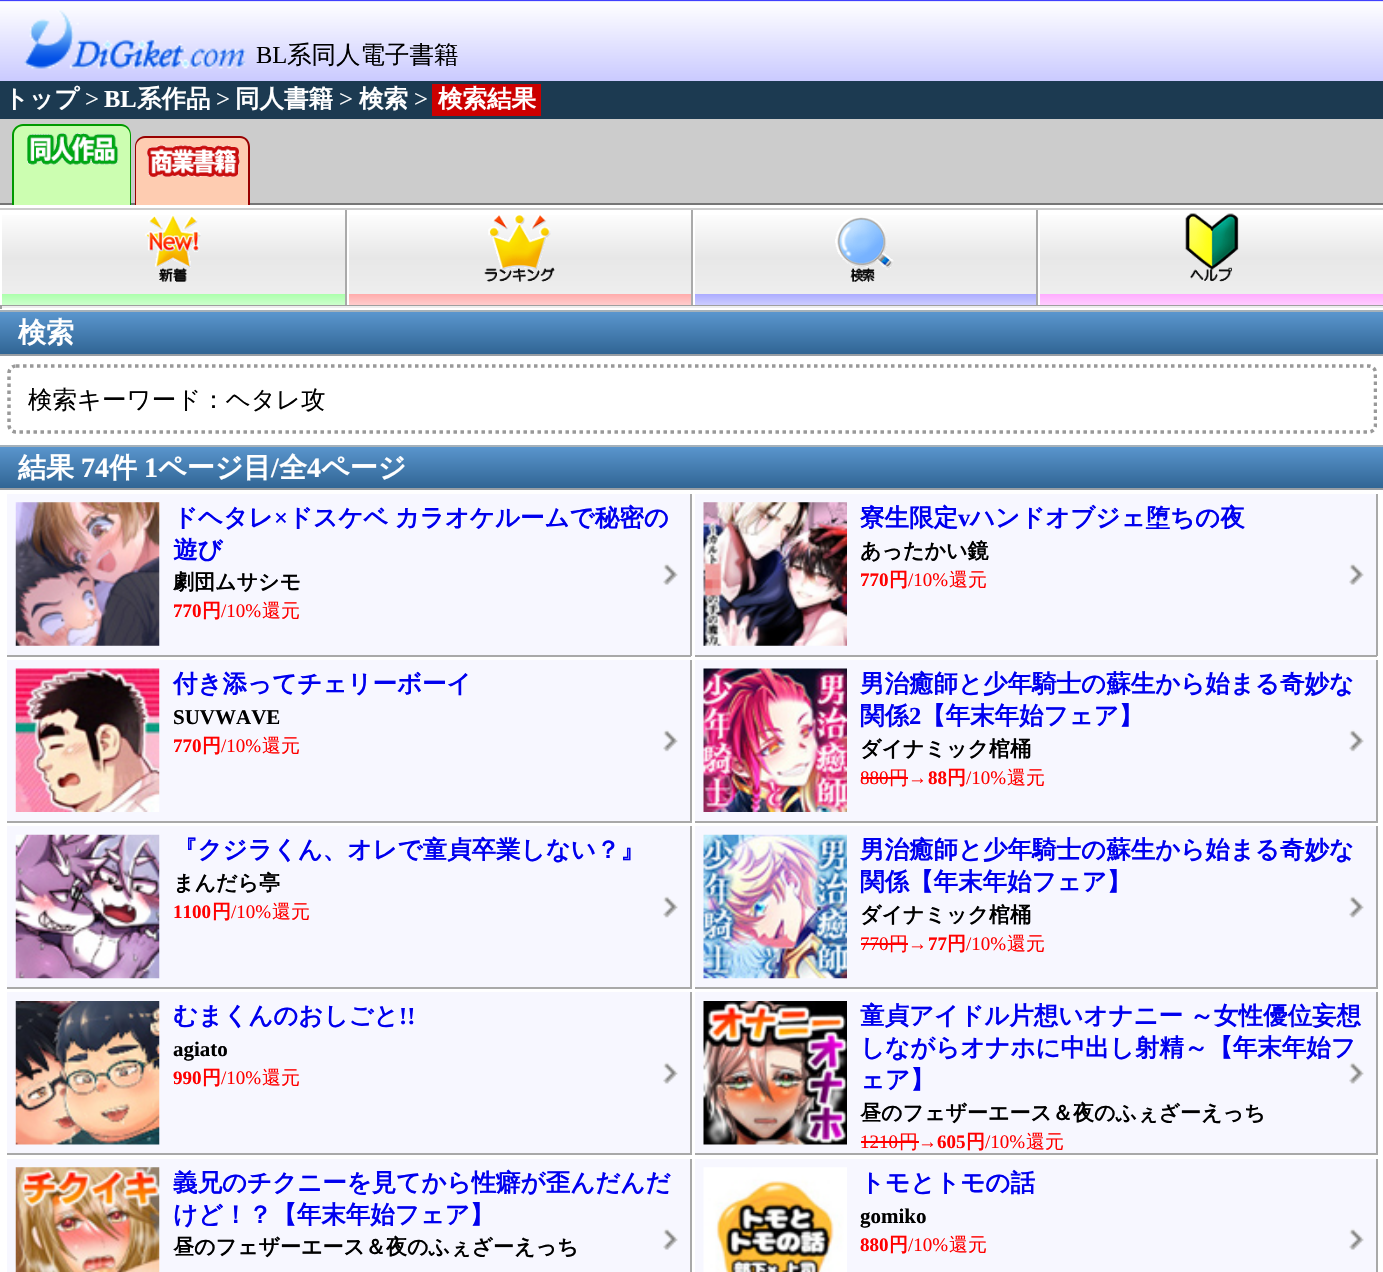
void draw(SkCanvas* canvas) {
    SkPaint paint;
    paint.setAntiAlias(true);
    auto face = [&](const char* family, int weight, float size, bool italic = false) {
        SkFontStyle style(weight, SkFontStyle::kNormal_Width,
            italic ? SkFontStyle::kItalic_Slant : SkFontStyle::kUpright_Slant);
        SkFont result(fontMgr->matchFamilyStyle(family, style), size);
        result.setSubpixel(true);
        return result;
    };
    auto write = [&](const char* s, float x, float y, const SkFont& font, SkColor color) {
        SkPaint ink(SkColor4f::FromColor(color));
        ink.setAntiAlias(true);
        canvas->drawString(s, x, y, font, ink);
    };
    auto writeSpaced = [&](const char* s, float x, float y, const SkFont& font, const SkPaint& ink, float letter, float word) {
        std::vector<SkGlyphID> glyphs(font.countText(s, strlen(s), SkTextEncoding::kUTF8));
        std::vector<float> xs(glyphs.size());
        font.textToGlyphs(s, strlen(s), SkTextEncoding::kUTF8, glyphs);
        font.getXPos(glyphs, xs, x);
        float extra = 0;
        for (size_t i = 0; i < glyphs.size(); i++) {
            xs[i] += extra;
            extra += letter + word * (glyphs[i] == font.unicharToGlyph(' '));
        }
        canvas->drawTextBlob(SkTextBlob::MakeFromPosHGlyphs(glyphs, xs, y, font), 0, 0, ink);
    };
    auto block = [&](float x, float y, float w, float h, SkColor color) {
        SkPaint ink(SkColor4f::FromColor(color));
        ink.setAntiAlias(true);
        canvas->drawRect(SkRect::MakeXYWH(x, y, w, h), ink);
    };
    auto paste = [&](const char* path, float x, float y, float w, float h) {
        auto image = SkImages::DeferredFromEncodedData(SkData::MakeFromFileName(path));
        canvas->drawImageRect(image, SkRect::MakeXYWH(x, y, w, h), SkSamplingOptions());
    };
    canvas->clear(SK_ColorWHITE);
    {
        const SkColor colors[] = {SkColorSetRGB(18, 18, 252), SkColorSetRGB(96, 96, 255), SK_ColorWHITE, SkColorSetRGB(202, 202, 255)};
        const float stops[] = {0, 0.01f, 0.02f, 1};
        const SkPoint ends[] = {{0, 0}, {0, 81}};
        paint.setShader(SkGradientShader::MakeLinear(ends, colors, stops, 4, SkTileMode::kClamp));
        paint.setAlpha(255);
    }
    canvas->drawRect(SkRect::MakeXYWH(0, 0, 1383, 81), paint);
    paste("pic1.png", 24, 10, 222, 59);
    auto kFont1 = face("Liberation Serif", 400, 24.5f);
    write("BL", 256, 63, kFont1, SK_ColorBLACK);
    auto kFont2 = face("WenQuanYi Zen Hei", 500, 24.5f);
    write("系同人電子書籍", 287, 63, kFont2, SK_ColorBLACK);
    block(0, 81, 1383, 38, SkColorSetRGB(28, 58, 81));
    auto kFont3 = face("WenQuanYi Zen Hei", 700, 24.5f);
    write("トップ", 4, 107, kFont3, SK_ColorWHITE);
    write(">", 85, 107, kFont1, SK_ColorWHITE);
    auto kFont4 = face("Liberation Serif", 700, 24.5f);
    write("BL", 104, 107, kFont4, SK_ColorWHITE);
    write("系作品", 137, 107, kFont3, SK_ColorWHITE);
    write(">", 216, 107, kFont1, SK_ColorWHITE);
    write("同人書籍", 235, 107, kFont3, SK_ColorWHITE);
    write(">", 339, 107, kFont1, SK_ColorWHITE);
    write("検索", 359, 107, kFont3, SK_ColorWHITE);
    write(">", 414, 107, kFont1, SK_ColorWHITE);
    block(432, 84, 109, 32, SkColorSetRGB(204, 0, 0));
    write("検索結果", 438, 107, kFont3, SK_ColorWHITE);
    block(0, 119, 1383, 84, SkColorSetRGB(204, 204, 204));
    block(0, 203, 1383, 2, SkColorSetRGB(119, 119, 119));
    paint.setShader(nullptr);
    paint.setColor(SkColorSetRGB(204, 254, 177));
    canvas->drawPath(SkPathBuilder().moveTo(23, 124).lineTo(120, 124).cubicTo(126, 124, 131, 129, 131, 135).lineTo(131, 205).lineTo(12, 205).lineTo(12, 135).cubicTo(12, 129, 17, 124, 23, 124).close().detach(), paint);
    canvas->save();
    canvas->clipRect(SkRect::MakeXYWH(0, 119, 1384, 86));
    paint.setColor(SkColorSetRGB(0, 153, 0));
    canvas->drawPath(SkPathBuilder(SkPathFillType::kEvenOdd).moveTo(23, 124).lineTo(121, 124).cubicTo(127, 124, 131, 129, 131, 135).lineTo(131, 240).lineTo(12, 240).lineTo(12, 135).cubicTo(12, 129, 17, 124, 23, 124).close().moveTo(23, 126).lineTo(121, 126).cubicTo(126, 126, 130, 130, 130, 135).lineTo(130, 240).lineTo(14, 240).lineTo(14, 135).cubicTo(14, 130, 18, 126, 23, 126).close().detach(), paint);
    canvas->restore();
    paste("pic2.png", 27, 133, 92, 32);
    paint.setColor(SkColorSetRGB(254, 204, 177));
    canvas->drawPath(SkPathBuilder().moveTo(146, 137).lineTo(239, 137).cubicTo(245, 137, 250, 142, 250, 148).lineTo(250, 205).lineTo(135, 205).lineTo(135, 148).cubicTo(135, 142, 140, 137, 146, 137).close().detach(), paint);
    canvas->save();
    canvas->clipRect(SkRect::MakeXYWH(0, 119, 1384, 86));
    paint.setColor(SkColorSetRGB(153, 0, 0));
    canvas->drawPath(SkPathBuilder(SkPathFillType::kEvenOdd).moveTo(145, 136).lineTo(240, 136).cubicTo(246, 136, 250, 141, 250, 147).lineTo(250, 243).lineTo(135, 243).lineTo(135, 147).cubicTo(135, 141, 139, 136, 145, 136).close().moveTo(145, 138).lineTo(240, 138).cubicTo(245, 138, 248, 142, 248, 147).lineTo(248, 243).lineTo(136, 243).lineTo(136, 147).cubicTo(136, 142, 140, 138, 145, 138).close().detach(), paint);
    canvas->restore();
    paste("pic3.png", 147, 145, 93, 32);
    block(0, 208, 1383, 2, SkColorSetRGB(204, 204, 204));
    {
        const SkColor colors[] = {SK_ColorWHITE, SkColorSetRGB(231, 231, 231), SkColorSetRGB(238, 238, 238), SkColorSetRGB(170, 255, 170), SkColorSetRGB(204, 255, 204)};
        const float stops[] = {0, 0.5f, 0.88f, 0.88f, 1};
        const SkPoint ends[] = {{173, 210}, {173, 305}};
        paint.setShader(SkGradientShader::MakeLinear(ends, colors, stops, 5, SkTileMode::kClamp));
        paint.setAlpha(255);
    }
    canvas->drawRect(SkRect::MakeXYWH(2, 215, 343, 90), paint);
    block(345, 210, 2, 95, SkColorSetRGB(170, 170, 170));
    paste("pic4.png", 145, 215, 56, 67);
    {
        const SkColor colors[] = {SK_ColorWHITE, SkColorSetRGB(231, 231, 231), SkColorSetRGB(238, 238, 238), SkColorSetRGB(255, 170, 170), SkColorSetRGB(255, 204, 204)};
        const float stops[] = {0, 0.5f, 0.88f, 0.88f, 1};
        const SkPoint ends[] = {{520, 210}, {520, 305}};
        paint.setShader(SkGradientShader::MakeLinear(ends, colors, stops, 5, SkTileMode::kClamp));
        paint.setAlpha(255);
    }
    canvas->drawRect(SkRect::MakeXYWH(349, 215, 342, 90), paint);
    block(691, 210, 2, 95, SkColorSetRGB(170, 170, 170));
    paste("pic5.png", 484, 215, 71, 67);
    {
        const SkColor colors[] = {SK_ColorWHITE, SkColorSetRGB(231, 231, 231), SkColorSetRGB(238, 238, 238), SkColorSetRGB(170, 170, 255), SkColorSetRGB(204, 204, 255)};
        const float stops[] = {0, 0.5f, 0.88f, 0.88f, 1};
        const SkPoint ends[] = {{865, 210}, {865, 305}};
        paint.setShader(SkGradientShader::MakeLinear(ends, colors, stops, 5, SkTileMode::kClamp));
        paint.setAlpha(255);
    }
    canvas->drawRect(SkRect::MakeXYWH(695, 215, 341, 90), paint);
    block(1036, 210, 2, 95, SkColorSetRGB(170, 170, 170));
    paste("pic6.png", 835, 217, 59, 65);
    {
        const SkColor colors[] = {SK_ColorWHITE, SkColorSetRGB(231, 231, 231), SkColorSetRGB(238, 238, 238), SkColorSetRGB(255, 170, 255), SkColorSetRGB(255, 204, 255)};
        const float stops[] = {0, 0.5f, 0.88f, 0.88f, 1};
        const SkPoint ends[] = {{1211, 210}, {1211, 305}};
        paint.setShader(SkGradientShader::MakeLinear(ends, colors, stops, 5, SkTileMode::kClamp));
        paint.setAlpha(255);
    }
    canvas->drawRect(SkRect::MakeXYWH(1040, 215, 343, 90), paint);
    paste("pic7.png", 1185, 213, 54, 69);
    block(0, 305, 1383, 1, SkColorSetRGB(159, 159, 159));
    block(0, 306, 1383, 2, SkColorSetRGB(238, 238, 238));
    block(0, 305, 2, 4, SkColorSetRGB(159, 159, 159));
    {
        const SkColor colors[] = {SkColorSetRGB(90, 150, 206), SkColorSetRGB(49, 101, 148)};
        const float stops[] = {0, 1};
        const SkPoint ends[] = {{0, 312}, {0, 354}};
        paint.setShader(SkGradientShader::MakeLinear(ends, colors, stops, 2, SkTileMode::kClamp));
        paint.setAlpha(255);
    }
    canvas->drawRect(SkRect::MakeXYWH(0, 312, 1383, 42), paint);
    block(0, 310, 1383, 2, SkColorSetRGB(165, 177, 186));
    block(0, 354, 1383, 2, SkColorSetRGB(152, 158, 164));
    auto kFont5 = face("WenQuanYi Zen Hei", 700, 28);
    write("検索", 18, 342, kFont5, SK_ColorWHITE);
    canvas->save();
    canvas->clipRect(SkRect::MakeXYWH(7, 357, 1370, 84));
    paint.setStyle(SkPaint::kStroke_Style);
    paint.setStrokeWidth(3.5f);
    paint.setShader(nullptr);
    paint.setColor(SkColorSetRGB(153, 153, 153));
    paint.setPathEffect(SkDashPathEffect::Make({{3.5f, 3.5f}}, 0));
    canvas->drawPath(SkPathBuilder().moveTo(16, 366).lineTo(1368.5f, 366).cubicTo(1372.5f, 366, 1375.5f, 369, 1375.5f, 373).lineTo(1375.5f, 425).cubicTo(1375.5f, 429, 1372.5f, 432, 1368.5f, 432).lineTo(16, 432).cubicTo(12, 432, 9, 429, 9, 425).lineTo(9, 373).cubicTo(9, 369, 12, 366, 16, 366).close().detach(), paint);
    paint.setPathEffect(nullptr);
    canvas->restore();
    write("検索キーワード：ヘタレ攻", 28, 408, kFont2, SK_ColorBLACK);
    paint.setStyle(SkPaint::kFill_Style);
    {
        const SkColor colors[] = {SkColorSetRGB(90, 150, 206), SkColorSetRGB(49, 101, 148)};
        const float stops[] = {0, 1};
        const SkPoint ends[] = {{0, 446}, {0, 488}};
        paint.setShader(SkGradientShader::MakeLinear(ends, colors, stops, 2, SkTileMode::kClamp));
        paint.setAlpha(255);
    }
    canvas->drawRect(SkRect::MakeXYWH(0, 447, 1383, 41), paint);
    block(0, 445, 1383, 2, SkColorSetRGB(165, 177, 186));
    block(0, 488, 1383, 2, SkColorSetRGB(152, 158, 164));
    write("結果", 18, 477, kFont5, SK_ColorWHITE);
    auto kFont6 = face("Liberation Serif", 700, 28);
    write("74", 81, 477, kFont6, SK_ColorWHITE);
    write("件", 109, 477, kFont5, SK_ColorWHITE);
    write("1", 144, 477, kFont6, SK_ColorWHITE);
    write("ページ目", 158, 477, kFont5, SK_ColorWHITE);
    write("/", 271, 477, kFont6, SK_ColorWHITE);
    write("全", 279, 477, kFont5, SK_ColorWHITE);
    write("4", 307, 477, kFont6, SK_ColorWHITE);
    write("ページ", 321, 477, kFont5, SK_ColorWHITE);
    block(7, 494, 683, 161, SkColorSetRGB(247, 247, 255));
    paste("pic8.png", 663, 563, 15, 22);
    block(690, 494, 2, 162, SkColorSetRGB(169, 169, 169));
    block(7, 655, 684, 2, SkColorSetRGB(169, 169, 169));
    paste("pic9.png", 15, 502, 145, 144);
    write("ドヘタレ", 173, 526, kFont3, SkColorSetRGB(0, 0, 238));
    write("×", 274, 526, kFont4, SkColorSetRGB(0, 0, 238));
    paint.setShader(nullptr);
    paint.setColor(SkColorSetRGB(0, 0, 238));
    writeSpaced("ドスケベ カラオケルームで秘密の", 288, 526, kFont3, paint, 0, -1);
    write("遊び", 173, 558, kFont3, SkColorSetRGB(0, 0, 238));
    auto kFont7 = face("WenQuanYi Zen Hei", 700, 21);
    write("劇団ムサシモ", 173, 589, kFont7, SK_ColorBLACK);
    auto kFont8 = face("Liberation Serif", 700, 19);
    write("770", 173, 617, kFont8, SkColorSetRGB(255, 0, 0));
    auto kFont9 = face("WenQuanYi Zen Hei", 700, 19);
    write("円", 202, 617, kFont9, SkColorSetRGB(255, 0, 0));
    auto kFont10 = face("Liberation Serif", 400, 19);
    write("/10%", 221, 617, kFont10, SkColorSetRGB(255, 0, 0));
    auto kFont11 = face("WenQuanYi Zen Hei", 500, 19);
    write("還元", 262, 617, kFont11, SkColorSetRGB(255, 0, 0));
    block(695, 494, 681, 161, SkColorSetRGB(247, 247, 255));
    paste("pic8.png", 1349, 563, 15, 22);
    block(1376, 494, 2, 162, SkColorSetRGB(169, 169, 169));
    block(695, 655, 682, 2, SkColorSetRGB(169, 169, 169));
    paste("pic10.png", 703, 502, 144, 144);
    write("寮生限定", 860, 526, kFont3, SkColorSetRGB(0, 0, 238));
    write("v", 958, 526, kFont4, SkColorSetRGB(0, 0, 238));
    write("ハンドオブジェ堕ちの夜", 970, 526, kFont3, SkColorSetRGB(0, 0, 238));
    write("あったかい鏡", 860, 558, kFont7, SK_ColorBLACK);
    write("770", 860, 586, kFont8, SkColorSetRGB(255, 0, 0));
    write("円", 889, 586, kFont9, SkColorSetRGB(255, 0, 0));
    write("/10%", 908, 586, kFont10, SkColorSetRGB(255, 0, 0));
    write("還元", 949, 586, kFont11, SkColorSetRGB(255, 0, 0));
    block(7, 660, 683, 161, SkColorSetRGB(247, 247, 255));
    paste("pic11.png", 663, 729, 15, 23);
    block(690, 660, 2, 163, SkColorSetRGB(169, 169, 169));
    block(7, 821, 684, 2, SkColorSetRGB(169, 169, 169));
    paste("pic12.png", 15, 668, 145, 144);
    write("付き添ってチェリーボーイ", 173, 692, kFont3, SkColorSetRGB(0, 0, 238));
    auto kFont12 = face("Liberation Serif", 700, 21);
    write("SUVWAVE", 173, 724, kFont12, SK_ColorBLACK);
    write("770", 173, 752, kFont8, SkColorSetRGB(255, 0, 0));
    write("円", 202, 752, kFont9, SkColorSetRGB(255, 0, 0));
    write("/10%", 221, 752, kFont10, SkColorSetRGB(255, 0, 0));
    write("還元", 262, 752, kFont11, SkColorSetRGB(255, 0, 0));
    block(695, 660, 681, 161, SkColorSetRGB(247, 247, 255));
    paste("pic11.png", 1349, 729, 15, 23);
    block(1376, 660, 2, 163, SkColorSetRGB(169, 169, 169));
    block(695, 821, 682, 2, SkColorSetRGB(169, 169, 169));
    paste("pic13.png", 703, 668, 144, 144);
    write("男治癒師と少年騎士の蘇生から始まる奇妙な", 860, 692, kFont3, SkColorSetRGB(0, 0, 238));
    write("関係", 860, 724, kFont3, SkColorSetRGB(0, 0, 238));
    write("2", 909, 724, kFont4, SkColorSetRGB(0, 0, 238));
    write("【年末年始フェア】", 921, 724, kFont3, SkColorSetRGB(0, 0, 238));
    write("ダイナミック棺桶", 860, 756, kFont7, SK_ColorBLACK);
    write("880", 860, 784, kFont10, SkColorSetRGB(255, 0, 0));
    block(861, 777, 47, 2, SkColorSetRGB(255, 0, 0));
    write("円", 889, 784, kFont11, SkColorSetRGB(255, 0, 0));
    write("→", 908, 784, kFont10, SkColorSetRGB(255, 0, 0));
    write("88", 928, 784, kFont8, SkColorSetRGB(255, 0, 0));
    write("円", 947, 784, kFont9, SkColorSetRGB(255, 0, 0));
    write("/10%", 966, 784, kFont10, SkColorSetRGB(255, 0, 0));
    write("還元", 1007, 784, kFont11, SkColorSetRGB(255, 0, 0));
    block(7, 826, 683, 161, SkColorSetRGB(247, 247, 255));
    paste("pic14.png", 663, 896, 15, 22);
    block(690, 826, 2, 163, SkColorSetRGB(169, 169, 169));
    block(7, 987, 684, 2, SkColorSetRGB(169, 169, 169));
    paste("pic15.png", 15, 834, 145, 145);
    write("『クジラくん、オレで童貞卒業しない？』", 173, 858, kFont3, SkColorSetRGB(0, 0, 238));
    write("まんだら亭", 173, 890, kFont7, SK_ColorBLACK);
    write("1100", 173, 918, kFont8, SkColorSetRGB(255, 0, 0));
    write("円", 212, 918, kFont9, SkColorSetRGB(255, 0, 0));
    write("/10%", 231, 918, kFont10, SkColorSetRGB(255, 0, 0));
    write("還元", 272, 918, kFont11, SkColorSetRGB(255, 0, 0));
    block(695, 826, 681, 161, SkColorSetRGB(247, 247, 255));
    paste("pic14.png", 1349, 896, 15, 22);
    block(1376, 826, 2, 163, SkColorSetRGB(169, 169, 169));
    block(695, 987, 682, 2, SkColorSetRGB(169, 169, 169));
    paste("pic16.png", 703, 834, 144, 145);
    write("男治癒師と少年騎士の蘇生から始まる奇妙な", 860, 858, kFont3, SkColorSetRGB(0, 0, 238));
    write("関係【年末年始フェア】", 860, 890, kFont3, SkColorSetRGB(0, 0, 238));
    write("ダイナミック棺桶", 860, 922, kFont7, SK_ColorBLACK);
    write("770", 860, 950, kFont10, SkColorSetRGB(255, 0, 0));
    block(861, 943, 47, 2, SkColorSetRGB(255, 0, 0));
    write("円", 889, 950, kFont11, SkColorSetRGB(255, 0, 0));
    write("→", 908, 950, kFont10, SkColorSetRGB(255, 0, 0));
    write("77", 928, 950, kFont8, SkColorSetRGB(255, 0, 0));
    write("円", 947, 950, kFont9, SkColorSetRGB(255, 0, 0));
    write("/10%", 966, 950, kFont10, SkColorSetRGB(255, 0, 0));
    write("還元", 1007, 950, kFont11, SkColorSetRGB(255, 0, 0));
    block(7, 992, 683, 161, SkColorSetRGB(247, 247, 255));
    paste("pic17.png", 663, 1062, 15, 22);
    block(690, 992, 2, 163, SkColorSetRGB(169, 169, 169));
    block(7, 1153, 684, 2, SkColorSetRGB(169, 169, 169));
    paste("pic18.png", 15, 1001, 145, 144);
    write("むまくんのおしごと", 173, 1024, kFont3, SkColorSetRGB(0, 0, 238));
    write("!!", 399, 1024, kFont4, SkColorSetRGB(0, 0, 238));
    write("agiato", 173, 1056, kFont12, SK_ColorBLACK);
    write("990", 173, 1084, kFont8, SkColorSetRGB(255, 0, 0));
    write("円", 202, 1084, kFont9, SkColorSetRGB(255, 0, 0));
    write("/10%", 221, 1084, kFont10, SkColorSetRGB(255, 0, 0));
    write("還元", 262, 1084, kFont11, SkColorSetRGB(255, 0, 0));
    block(695, 992, 681, 161, SkColorSetRGB(247, 247, 255));
    paste("pic17.png", 1349, 1062, 15, 22);
    block(1376, 992, 2, 163, SkColorSetRGB(169, 169, 169));
    block(695, 1153, 682, 2, SkColorSetRGB(169, 169, 169));
    paste("pic19.png", 703, 1001, 144, 144);
    writeSpaced("童貞アイドル片想いオナニー ～女性優位妄想", 860, 1024, kFont3, paint, 0, -1);
    write("しながらオナホに中出し射精～【年末年始フ", 860, 1056, kFont3, SkColorSetRGB(0, 0, 238));
    write("ェア】", 860, 1088, kFont3, SkColorSetRGB(0, 0, 238));
    write("昼のフェザーエース＆夜のふぇざーえっち", 860, 1120, kFont7, SK_ColorBLACK);
    write("1210", 860, 1148, kFont10, SkColorSetRGB(255, 0, 0));
    block(861, 1141, 58, 2, SkColorSetRGB(255, 0, 0));
    write("円", 899, 1148, kFont11, SkColorSetRGB(255, 0, 0));
    write("→", 918, 1148, kFont10, SkColorSetRGB(255, 0, 0));
    write("605", 937, 1148, kFont8, SkColorSetRGB(255, 0, 0));
    write("円", 966, 1148, kFont9, SkColorSetRGB(255, 0, 0));
    write("/10%", 985, 1148, kFont10, SkColorSetRGB(255, 0, 0));
    write("還元", 1026, 1148, kFont11, SkColorSetRGB(255, 0, 0));
    block(7, 1159, 683, 113, SkColorSetRGB(247, 247, 255));
    paste("pic8.png", 663, 1228, 15, 22);
    block(690, 1159, 2, 113, SkColorSetRGB(169, 169, 169));
    paste("pic20.png", 15, 1167, 145, 105);
    write("義兄のチクニーを見てから性癖が歪んだんだ", 173, 1191, kFont3, SkColorSetRGB(0, 0, 238));
    write("けど！？【年末年始フェア】", 173, 1223, kFont3, SkColorSetRGB(0, 0, 238));
    write("昼のフェザーエース＆夜のふぇざーえっち", 173, 1254, kFont7, SK_ColorBLACK);
    block(695, 1159, 681, 113, SkColorSetRGB(247, 247, 255));
    paste("pic8.png", 1349, 1228, 15, 22);
    block(1376, 1159, 2, 113, SkColorSetRGB(169, 169, 169));
    paste("pic21.png", 703, 1167, 144, 105);
    write("トモとトモの話", 860, 1191, kFont3, SkColorSetRGB(0, 0, 238));
    write("gomiko", 860, 1223, kFont12, SK_ColorBLACK);
    write("880", 860, 1251, kFont8, SkColorSetRGB(255, 0, 0));
    write("円", 889, 1251, kFont9, SkColorSetRGB(255, 0, 0));
    write("/10%", 908, 1251, kFont10, SkColorSetRGB(255, 0, 0));
    write("還元", 949, 1251, kFont11, SkColorSetRGB(255, 0, 0));
}
